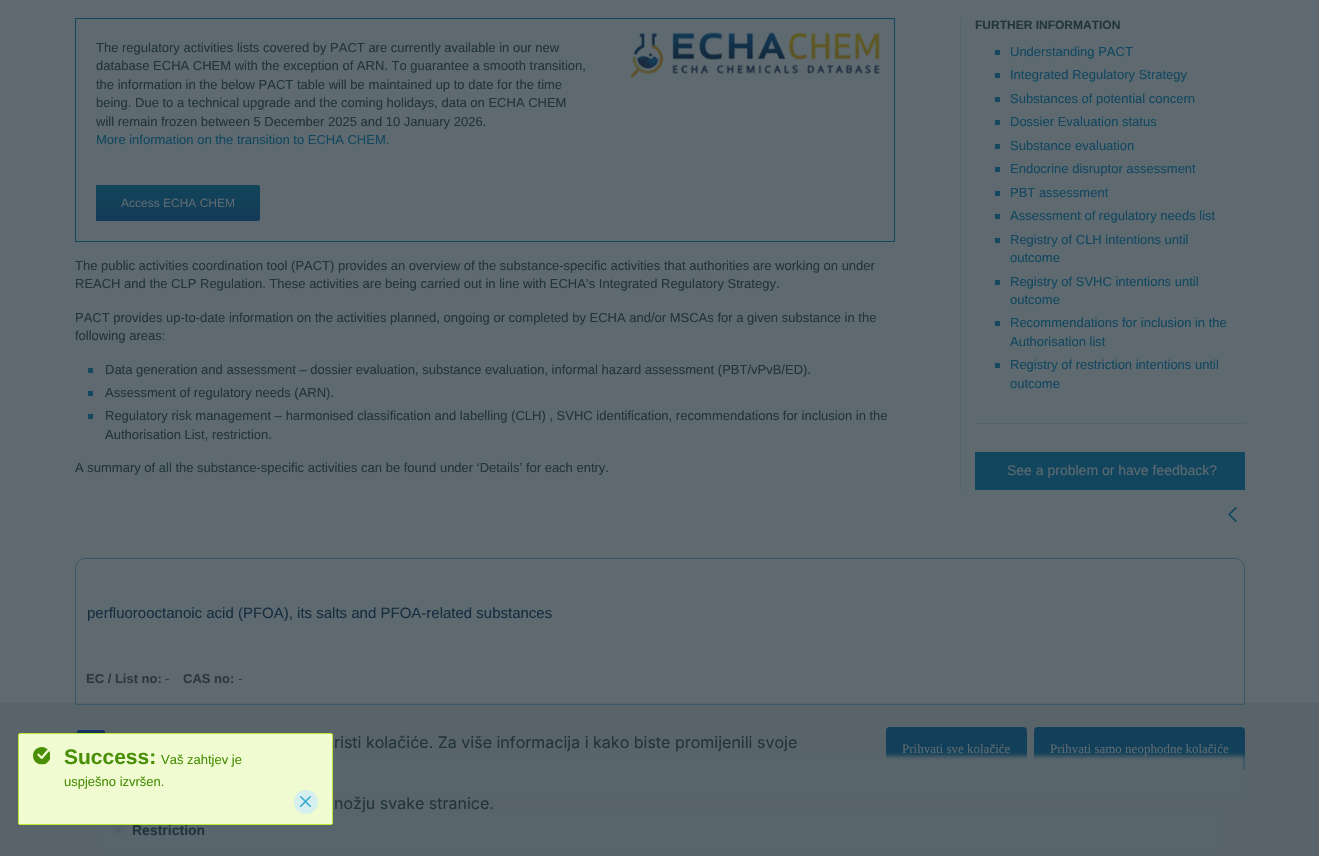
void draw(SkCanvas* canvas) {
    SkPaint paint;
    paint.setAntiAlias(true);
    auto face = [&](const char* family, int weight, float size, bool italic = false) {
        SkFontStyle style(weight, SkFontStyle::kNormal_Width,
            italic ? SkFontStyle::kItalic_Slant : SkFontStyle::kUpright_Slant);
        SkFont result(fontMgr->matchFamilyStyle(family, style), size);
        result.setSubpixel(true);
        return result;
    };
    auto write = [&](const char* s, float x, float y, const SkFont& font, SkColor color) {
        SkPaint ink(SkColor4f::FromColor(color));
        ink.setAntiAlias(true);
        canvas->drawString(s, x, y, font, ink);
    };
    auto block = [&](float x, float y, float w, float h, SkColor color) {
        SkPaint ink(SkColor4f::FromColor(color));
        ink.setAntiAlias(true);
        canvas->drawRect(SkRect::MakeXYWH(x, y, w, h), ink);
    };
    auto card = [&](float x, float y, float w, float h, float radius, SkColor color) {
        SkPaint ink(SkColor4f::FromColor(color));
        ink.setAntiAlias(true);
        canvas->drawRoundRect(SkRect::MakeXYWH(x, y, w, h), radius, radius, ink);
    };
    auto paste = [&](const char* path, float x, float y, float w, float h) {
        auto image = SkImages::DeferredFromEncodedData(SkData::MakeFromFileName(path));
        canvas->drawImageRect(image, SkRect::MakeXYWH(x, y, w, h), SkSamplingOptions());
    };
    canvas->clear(SkColorSetRGB(94, 106, 112));
    paint.setStyle(SkPaint::kStroke_Style);
    paint.setStrokeWidth(1);
    paint.setColor(SkColorSetRGB(18, 71, 95));
    canvas->drawRect(SkRect::MakeXYWH(75.5f, 18.5f, 819, 223), paint);
    auto kFont1 = face("Liberation Sans", 400, 13);
    write("The regulatory activities lists covered by PACT are currently available in our new", 96, 52, kFont1, SkColorSetRGB(34, 52, 60));
    write("database ECHA CHEM with the exception of ARN. To guarantee a smooth transition,", 96, 70, kFont1, SkColorSetRGB(34, 52, 60));
    write("the information in the below PACT table will be maintained up to date for the time", 96, 89, kFont1, SkColorSetRGB(34, 52, 60));
    write("being. Due to a technical upgrade and the coming holidays, data on ECHA CHEM", 96, 107, kFont1, SkColorSetRGB(34, 52, 60));
    write("will remain frozen between 5 December 2025 and 10 January 2026.", 96, 126, kFont1, SkColorSetRGB(34, 52, 60));
    write("More information on the transition to ECHA CHEM.", 96, 144, kFont1, SkColorSetRGB(18, 71, 95));
    paint.setStyle(SkPaint::kFill_Style);
    {
        const SkColor colors[] = {SkColorSetRGB(18, 69, 92), SkColorSetRGB(19, 58, 86)};
        const float stops[] = {0, 1};
        const SkPoint ends[] = {{178, 185}, {178, 221}};
        paint.setShader(SkGradientShader::MakeLinear(ends, colors, stops, 2, SkTileMode::kClamp));
        paint.setAlpha(255);
    }
    canvas->drawPath(SkPathBuilder().moveTo(96, 185).lineTo(258, 185).cubicTo(259, 185, 260, 186, 260, 187).lineTo(260, 219).cubicTo(260, 220, 259, 221, 258, 221).lineTo(96, 221).close().detach(), paint);
    auto kFont2 = face("Liberation Sans", 400, 12);
    write("Access ECHA CHEM", 121, 207, kFont2, SkColorSetRGB(94, 106, 112));
    paste("pic1.png", 630, 32, 250, 46);
    write("The public activities coordination tool (PACT) provides an overview of the substance-specific activities that authorities are working on under", 75, 270, kFont1, SkColorSetRGB(34, 52, 60));
    write("REACH and the CLP Regulation. These activities are being carried out in line with ECHA’s Integrated Regulatory Strategy.", 75, 288, kFont1, SkColorSetRGB(34, 52, 60));
    write("PACT provides up-to-date information on the activities planned, ongoing or completed by ECHA and/or MSCAs for a given substance in the", 75, 322, kFont1, SkColorSetRGB(34, 52, 60));
    write("following areas:", 75, 340, kFont1, SkColorSetRGB(34, 52, 60));
    block(88, 368, 5, 5, SkColorSetRGB(18, 71, 95));
    write("Data generation and assessment – dossier evaluation, substance evaluation, informal hazard assessment (PBT/vPvB/ED).", 105, 374, kFont1, SkColorSetRGB(34, 52, 60));
    block(88, 391, 5, 5, SkColorSetRGB(18, 71, 95));
    write("Assessment of regulatory needs (ARN).", 105, 397, kFont1, SkColorSetRGB(34, 52, 60));
    block(88, 414, 5, 5, SkColorSetRGB(18, 71, 95));
    write("Regulatory risk management – harmonised classification and labelling (CLH) , SVHC identification, recommendations for inclusion in the", 105, 420, kFont1, SkColorSetRGB(34, 52, 60));
    write("Authorisation List, restriction.", 105, 439, kFont1, SkColorSetRGB(34, 52, 60));
    write("A summary of all the substance-specific activities can be found under ‘Details’ for each entry.", 75, 472, kFont1, SkColorSetRGB(34, 52, 60));
    block(960, 18, 1, 472, SkColorSetRGB(82, 101, 110));
    auto kFont3 = face("Liberation Sans", 700, 12);
    write("FURTHER INFORMATION", 975, 29, kFont3, SkColorSetRGB(34, 52, 60));
    block(995, 50, 5, 5, SkColorSetRGB(18, 71, 95));
    write("Understanding PACT", 1010, 56, kFont1, SkColorSetRGB(18, 71, 95));
    block(995, 73, 5, 5, SkColorSetRGB(18, 71, 95));
    write("Integrated Regulatory Strategy", 1010, 79, kFont1, SkColorSetRGB(18, 71, 95));
    block(995, 97, 5, 5, SkColorSetRGB(18, 71, 95));
    write("Substances of potential concern", 1010, 103, kFont1, SkColorSetRGB(18, 71, 95));
    block(995, 120, 5, 5, SkColorSetRGB(18, 71, 95));
    write("Dossier Evaluation status", 1010, 126, kFont1, SkColorSetRGB(18, 71, 95));
    block(995, 144, 5, 5, SkColorSetRGB(18, 71, 95));
    write("Substance evaluation", 1010, 150, kFont1, SkColorSetRGB(18, 71, 95));
    block(995, 167, 5, 5, SkColorSetRGB(18, 71, 95));
    write("Endocrine disruptor assessment", 1010, 173, kFont1, SkColorSetRGB(18, 71, 95));
    block(995, 191, 5, 5, SkColorSetRGB(18, 71, 95));
    write("PBT assessment", 1010, 197, kFont1, SkColorSetRGB(18, 71, 95));
    block(995, 214, 5, 5, SkColorSetRGB(18, 71, 95));
    write("Assessment of regulatory needs list", 1010, 220, kFont1, SkColorSetRGB(18, 71, 95));
    block(995, 238, 5, 5, SkColorSetRGB(18, 71, 95));
    write("Registry of CLH intentions until", 1010, 244, kFont1, SkColorSetRGB(18, 71, 95));
    write("outcome", 1010, 262, kFont1, SkColorSetRGB(18, 71, 95));
    block(995, 280, 5, 5, SkColorSetRGB(18, 71, 95));
    write("Registry of SVHC intentions until", 1010, 286, kFont1, SkColorSetRGB(18, 71, 95));
    write("outcome", 1010, 304, kFont1, SkColorSetRGB(18, 71, 95));
    block(995, 321, 5, 5, SkColorSetRGB(18, 71, 95));
    write("Recommendations for inclusion in the", 1010, 327, kFont1, SkColorSetRGB(18, 71, 95));
    write("Authorisation list", 1010, 346, kFont1, SkColorSetRGB(18, 71, 95));
    block(995, 363, 5, 5, SkColorSetRGB(18, 71, 95));
    write("Registry of restriction intentions until", 1010, 369, kFont1, SkColorSetRGB(18, 71, 95));
    write("outcome", 1010, 388, kFont1, SkColorSetRGB(18, 71, 95));
    block(975, 423, 270, 1, SkColorSetRGB(82, 101, 110));
    block(975, 452, 270, 38, SkColorSetRGB(18, 70, 94));
    auto kFont4 = face("Liberation Sans", 400, 14);
    write("See a problem or have feedback?", 1007, 475, kFont4, SkColorSetRGB(94, 106, 112));
    paste("pic2.png", 1228, 507, 9, 15);
    block(0, 703, 1319, 153, SkColorSetRGB(88, 100, 106));
    paint.setStyle(SkPaint::kStroke_Style);
    paint.setShader(nullptr);
    paint.setColor(SkColorSetRGB(56, 88, 103));
    canvas->drawPath(SkPathBuilder().moveTo(85, 558.5f).lineTo(1235, 558.5f).cubicTo(1240, 558.5f, 1244.5f, 563, 1244.5f, 568).lineTo(1244.5f, 704.5f).lineTo(75.5f, 704.5f).lineTo(75.5f, 568).cubicTo(75.5f, 563, 80, 558.5f, 85, 558.5f).close().detach(), paint);
    auto kFont5 = face("Liberation Sans", 400, 15);
    write("perfluorooctanoic acid (PFOA), its salts and PFOA-related substances", 87, 618, kFont5, SkColorSetRGB(23, 45, 64));
    auto kFont6 = face("Liberation Sans", 700, 13);
    write("EC / List no:", 86, 683, kFont6, SkColorSetRGB(44, 56, 61));
    write("-", 165, 683, kFont1, SkColorSetRGB(44, 56, 61));
    write("CAS no:", 183, 683, kFont6, SkColorSetRGB(44, 56, 61));
    write("-", 238, 683, kFont1, SkColorSetRGB(44, 56, 61));
    card(886, 727, 141, 44, 4, SkColorSetRGB(18, 64, 90));
    card(1034, 727, 211, 44, 4, SkColorSetRGB(18, 64, 90));
    paint.setStyle(SkPaint::kFill_Style);
    paint.setColor(SkColorSetRGB(88, 101, 108));
    paint.setMaskFilter(SkMaskFilter::MakeBlur(kNormal_SkBlurStyle, 2));
    canvas->drawRect(SkRect::MakeXYWH(75, 756, 1170, 37), paint);
    paint.setMaskFilter(nullptr);
    paint.setMaskFilter(SkMaskFilter::MakeBlur(kNormal_SkBlurStyle, 2));
    canvas->drawRect(SkRect::MakeXYWH(102, 812, 1116, 37), paint);
    paint.setMaskFilter(nullptr);
    paste("pic3.png", 112, 825, 13, 10);
    auto kFont7 = face("Liberation Sans", 700, 14);
    write("Restriction", 132, 835, kFont7, SkColorSetRGB(34, 52, 60));
    paint.setColor(SkColorSetRGB(241, 251, 209));
    canvas->drawRoundRect(SkRect::MakeXYWH(18.5f, 733.5f, 314, 91), 1.5f, 1.5f, paint);
    paint.setStyle(SkPaint::kStroke_Style);
    paint.setColor(SkColorSetRGB(188, 232, 48));
    canvas->drawRoundRect(SkRect::MakeXYWH(18.5f, 733.5f, 314, 91), 1.5f, 1.5f, paint);
    paste("pic4.png", 33, 747, 17, 18);
    auto kFont8 = face("Liberation Sans", 700, 21);
    write("Success:", 64, 764, kFont8, SkColorSetRGB(72, 143, 6));
    write("Vaš zahtjev je", 161, 764, kFont1, SkColorSetRGB(72, 143, 6));
    write("uspješno izvršen.", 64, 786, kFont1, SkColorSetRGB(72, 143, 6));
    paint.setStyle(SkPaint::kFill_Style);
    paint.setColor(SkColorSetRGB(214, 240, 239));
    canvas->drawCircle(306, 802, 12, paint);
    paste("pic5.png", 299, 796, 12, 11);
    paste("pic6.png", 77, 730, 28, 3);
    auto kFont9 = face("Inter", 400, 16);
    write("risti kolačiće. Za više informacija i kako biste promijenili svoje", 334, 748, kFont9, SkColorSetRGB(34, 52, 60));
    write("nožju svake stranice.", 334, 809, kFont9, SkColorSetRGB(34, 52, 60));
    auto kFont10 = face("Liberation Serif", 400, 13);
    write("Prihvati sve kolačiće", 902, 753, kFont10, SkColorSetRGB(94, 106, 112));
    write("Prihvati samo neophodne kolačiće", 1050, 753, kFont10, SkColorSetRGB(94, 106, 112));
}
